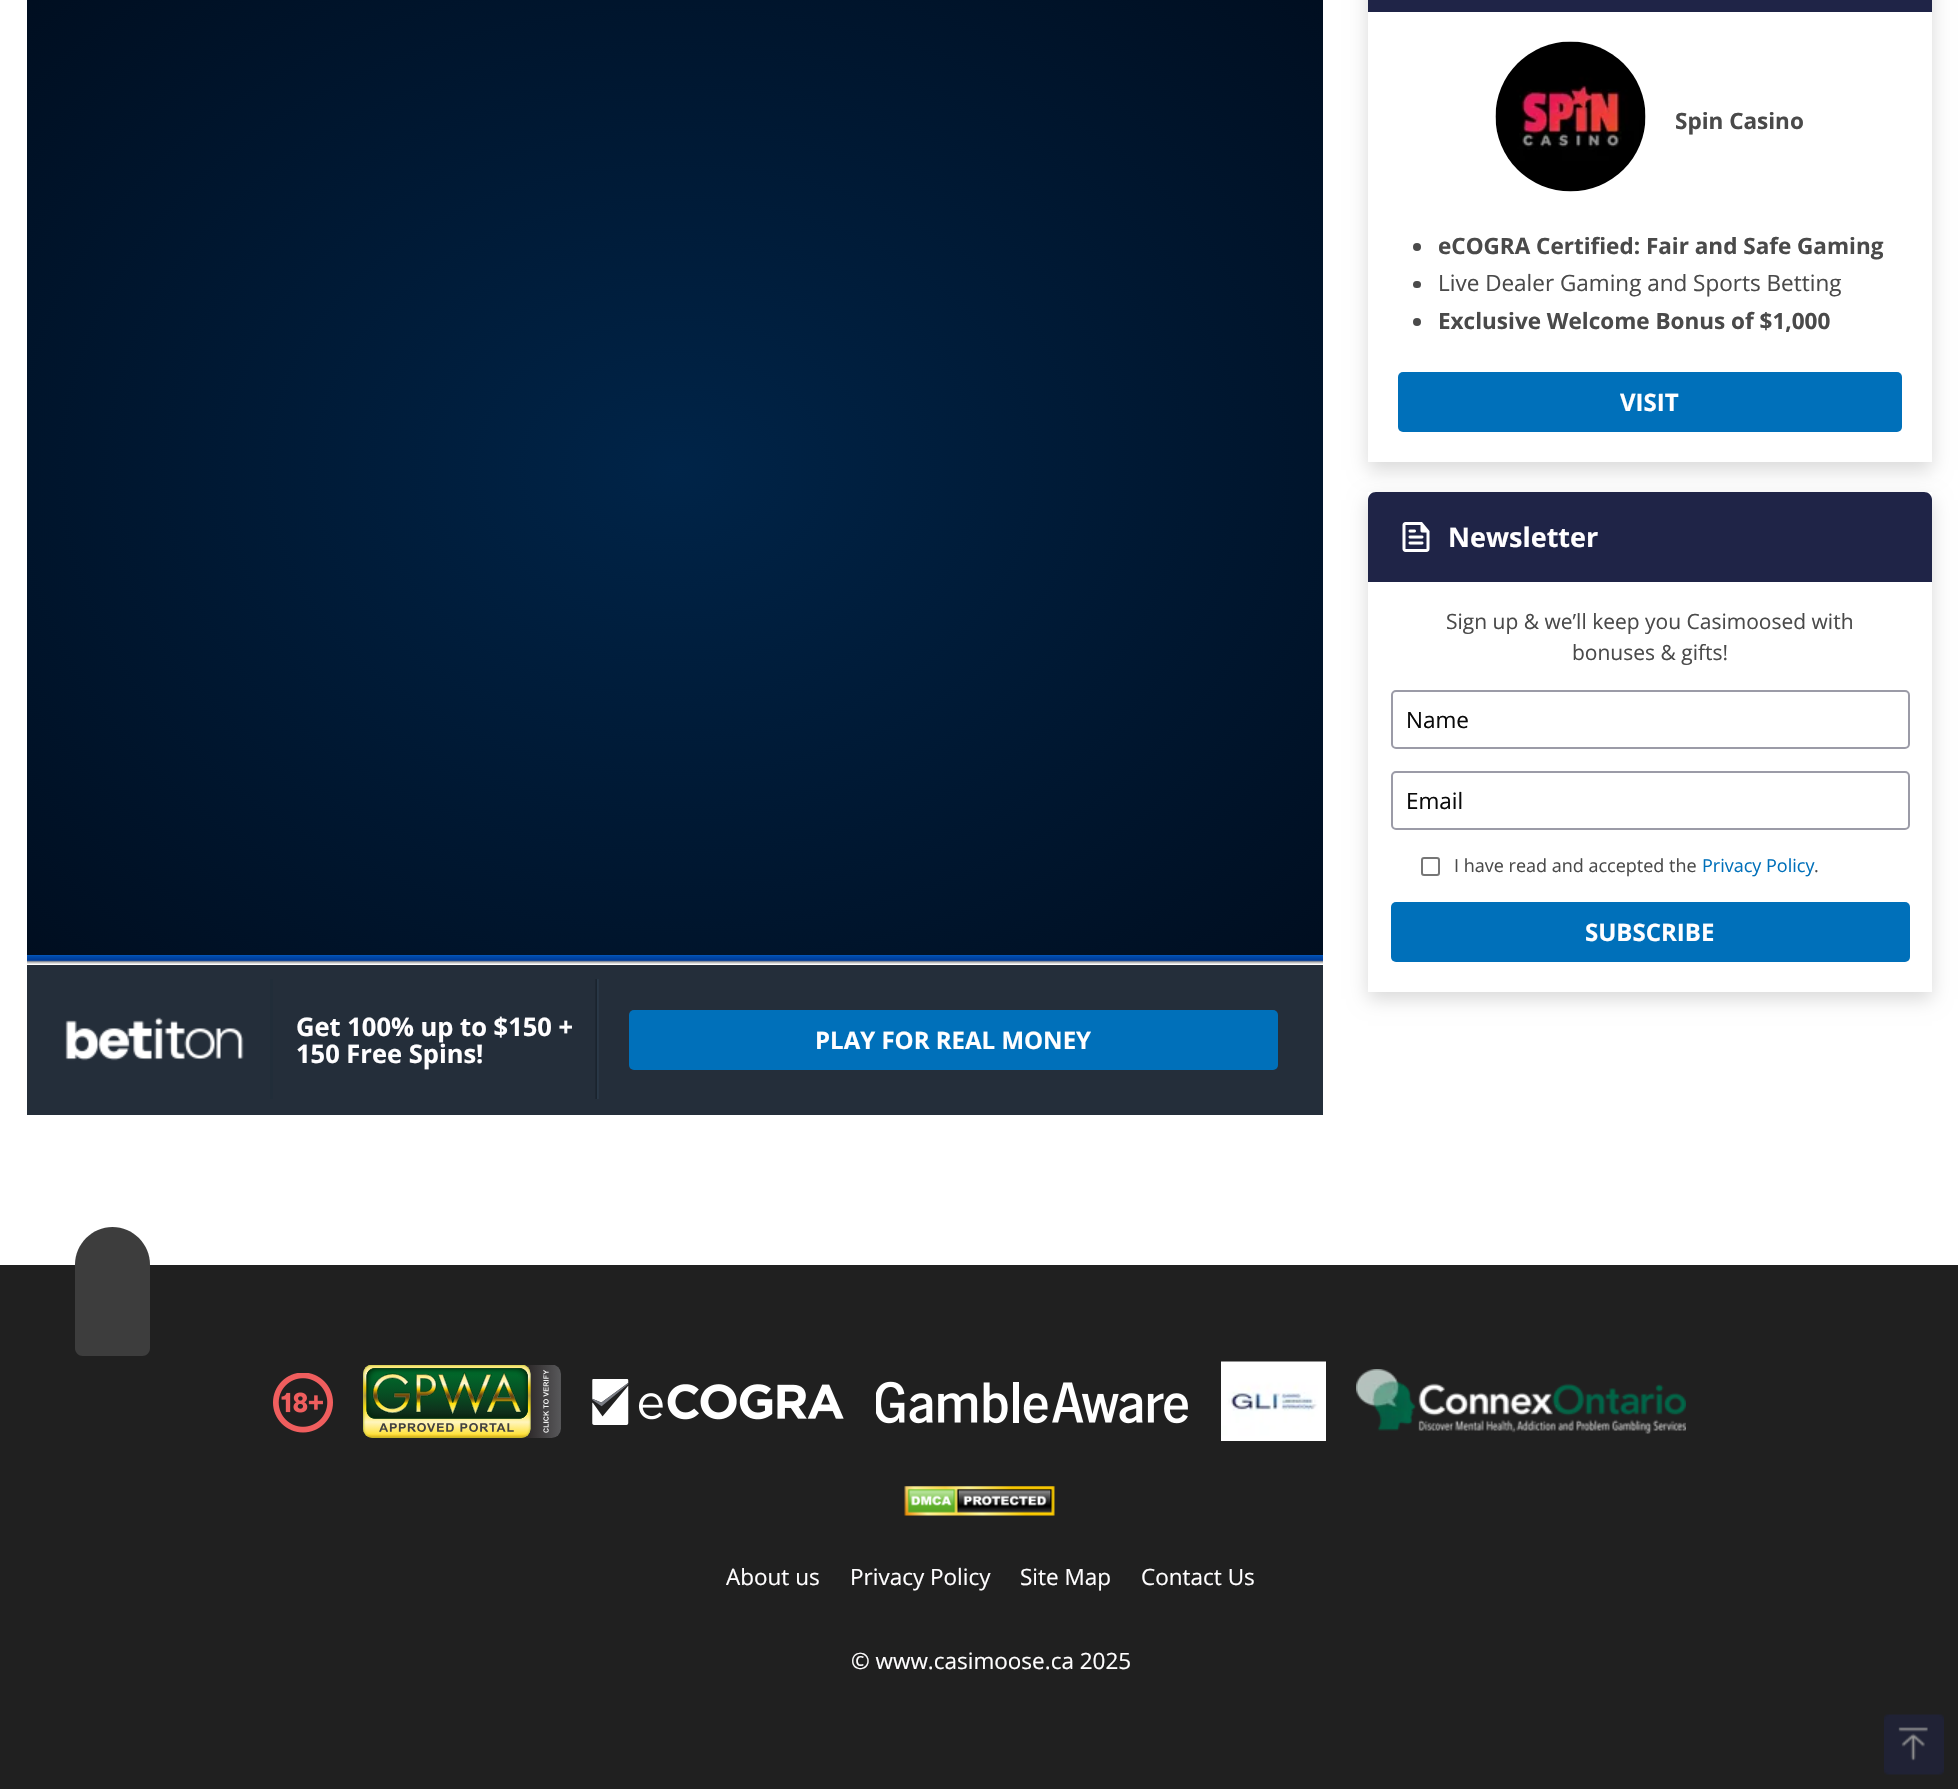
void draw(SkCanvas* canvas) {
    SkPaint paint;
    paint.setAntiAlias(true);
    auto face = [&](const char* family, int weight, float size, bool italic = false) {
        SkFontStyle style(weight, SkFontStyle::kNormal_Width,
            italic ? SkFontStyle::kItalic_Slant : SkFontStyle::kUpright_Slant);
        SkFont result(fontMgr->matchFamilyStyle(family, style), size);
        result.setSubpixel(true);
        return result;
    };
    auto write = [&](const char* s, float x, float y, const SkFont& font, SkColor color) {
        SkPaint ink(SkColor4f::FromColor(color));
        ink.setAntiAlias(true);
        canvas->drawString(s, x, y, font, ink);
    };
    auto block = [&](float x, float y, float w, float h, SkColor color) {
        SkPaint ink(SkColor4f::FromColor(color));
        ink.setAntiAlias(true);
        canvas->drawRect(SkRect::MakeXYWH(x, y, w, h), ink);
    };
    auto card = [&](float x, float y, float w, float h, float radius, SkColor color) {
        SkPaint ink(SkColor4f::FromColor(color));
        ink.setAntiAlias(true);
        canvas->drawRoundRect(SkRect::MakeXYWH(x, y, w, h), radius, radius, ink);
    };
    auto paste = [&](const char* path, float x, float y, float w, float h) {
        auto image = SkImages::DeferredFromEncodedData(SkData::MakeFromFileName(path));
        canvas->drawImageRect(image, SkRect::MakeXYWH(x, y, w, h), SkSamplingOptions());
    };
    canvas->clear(SK_ColorWHITE);
    canvas->save();
    canvas->clipPath(SkPathBuilder(SkPathFillType::kEvenOdd).moveTo(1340, 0).lineTo(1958, 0).lineTo(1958, 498).lineTo(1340, 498).close().moveTo(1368, -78).lineTo(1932, -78).lineTo(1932, 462).lineTo(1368, 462).close().detach(), true);
    paint.setColor(SkColorSetARGB(38, 0, 0, 0));
    paint.setMaskFilter(SkMaskFilter::MakeBlur(kNormal_SkBlurStyle, 9));
    canvas->drawRect(SkRect::MakeXYWH(1368, -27, 564, 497), paint);
    paint.setMaskFilter(nullptr);
    canvas->restore();
    block(1368, 0, 564, 12, SkColorSetRGB(31, 36, 71));
    paste("pic1.png", 1495, 41, 151, 151);
    auto kFont1 = face("Open Sans", 700, 22.5f);
    write("Spin Casino", 1675, 129, kFont1, SkColorSetRGB(74, 74, 74));
    paint.setColor(SkColorSetRGB(74, 74, 74));
    canvas->drawCircle(1417, 247, 4, paint);
    write("eCOGRA Certified: Fair and Safe Gaming", 1438, 254, kFont1, SkColorSetRGB(74, 74, 74));
    card(1413, 281, 8, 7, 3.5f, SkColorSetRGB(74, 74, 74));
    auto kFont2 = face("Open Sans", 400, 22.5f);
    write("Live Dealer Gaming and Sports Betting", 1438, 291, kFont2, SkColorSetRGB(74, 74, 74));
    canvas->drawCircle(1417, 322, 4, paint);
    write("Exclusive Welcome Bonus of $1,000", 1438, 329, kFont1, SkColorSetRGB(74, 74, 74));
    card(1398, 372, 504, 60, 5, SkColorSetRGB(0, 112, 186));
    auto kFont3 = face("Open Sans", 700, 24);
    write("VISIT", 1620, 411, kFont3, SkColorSetRGB(255, 254, 255));
    paint.setColor(SkColorSetARGB(38, 0, 0, 0));
    paint.setMaskFilter(SkMaskFilter::MakeBlur(kNormal_SkBlurStyle, 9));
    canvas->drawRect(SkRect::MakeXYWH(1368, 500, 564, 499), paint);
    paint.setMaskFilter(nullptr);
    block(1368, 492, 564, 500, SK_ColorWHITE);
    paint.setColor(SkColorSetRGB(31, 36, 71));
    canvas->drawPath(SkPathBuilder().moveTo(1376, 492).lineTo(1924, 492).cubicTo(1928.5f, 492, 1932, 495.5f, 1932, 500).lineTo(1932, 582).lineTo(1368, 582).lineTo(1368, 500).cubicTo(1368, 495.5f, 1371.5f, 492, 1376, 492).close().detach(), paint);
    paste("pic2.png", 1402, 522, 28, 30);
    auto kFont4 = face("Open Sans", 700, 27);
    write("Newsletter", 1448, 547, kFont4, SkColorSetRGB(255, 254, 255));
    auto kFont5 = face("Open Sans", 400, 21);
    write("Sign up & we’ll keep you Casimoosed with", 1446, 629, kFont5, SkColorSetRGB(74, 74, 74));
    write("bonuses & gifts!", 1572, 660, kFont5, SkColorSetRGB(74, 74, 74));
    paint.setStyle(SkPaint::kStroke_Style);
    paint.setStrokeWidth(2);
    paint.setColor(SkColorSetRGB(155, 155, 167));
    canvas->drawRoundRect(SkRect::MakeXYWH(1392, 691, 517, 57), 4, 4, paint);
    write("Name", 1406, 728, kFont2, SkColorSetRGB(10, 10, 10));
    canvas->drawRoundRect(SkRect::MakeXYWH(1392, 772, 517, 57), 4, 4, paint);
    write("Email", 1406, 809, kFont2, SkColorSetRGB(10, 10, 10));
    paint.setColor(SkColorSetRGB(118, 118, 118));
    canvas->drawRoundRect(SkRect::MakeXYWH(1422, 858, 17, 17), 2, 2, paint);
    auto kFont6 = face("Open Sans", 400, 18);
    write("I have read and accepted the", 1454, 872, kFont6, SkColorSetRGB(74, 74, 74));
    write("Privacy Policy", 1702, 872, kFont6, SkColorSetRGB(0, 112, 186));
    write(".", 1814, 872, kFont6, SkColorSetRGB(74, 74, 74));
    card(1391, 902, 519, 60, 5, SkColorSetRGB(0, 112, 186));
    write("SUBSCRIBE", 1585, 941, kFont3, SkColorSetRGB(255, 254, 255));
    paste("pic3.png", 27, 0, 1296, 955);
    paste("pic4.png", 27, 955, 1296, 9);
    block(27, 965, 1296, 150, SkColorSetRGB(36, 46, 58));
    paste("pic5.png", 65, 1017, 179, 44);
    block(270, 979, 3, 120, SkColorSetRGB(33, 45, 57));
    auto kFont7 = face("Open Sans", 700, 25.5f);
    write("Get 100% up to $150 +", 296, 1036, kFont7, SkColorSetRGB(255, 254, 255));
    write("150 Free Spins!", 296, 1063, kFont7, SkColorSetRGB(255, 254, 255));
    paste("pic6.png", 595, 979, 4, 120);
    card(629, 1010, 649, 60, 5, SkColorSetRGB(0, 112, 186));
    write("PLAY FOR REAL MONEY", 815, 1049, kFont3, SkColorSetRGB(255, 254, 255));
    block(0, 1265, 1958, 524, SkColorSetRGB(32, 32, 32));
    paint.setStyle(SkPaint::kFill_Style);
    paint.setColor(SkColorSetRGB(61, 61, 61));
    canvas->drawPath(SkPathBuilder().moveTo(112.5f, 1227).cubicTo(133, 1227, 150, 1244, 150, 1264.5f).lineTo(150, 1348).cubicTo(150, 1352.5f, 146.5f, 1356, 142, 1356).lineTo(83, 1356).cubicTo(78.5f, 1356, 75, 1352.5f, 75, 1348).lineTo(75, 1264.5f).cubicTo(75, 1244, 92, 1227, 112.5f, 1227).close().detach(), paint);
    paste("pic7.png", 273, 1373, 60, 60);
    paste("pic8.png", 363, 1365, 198, 73);
    paste("pic9.png", 592, 1379, 252, 46);
    paste("pic10.png", 876, 1381, 312, 43);
    paste("pic11.png", 1221, 1361, 105, 80);
    paste("pic12.png", 1356, 1369, 330, 65);
    paste("pic13.png", 904, 1486, 151, 30);
    write("About us", 726, 1585, kFont2, SkColorSetRGB(255, 254, 255));
    write("Privacy Policy", 850, 1585, kFont2, SkColorSetRGB(255, 254, 255));
    write("Site Map", 1020, 1585, kFont2, SkColorSetRGB(255, 254, 255));
    write("Contact Us", 1141, 1585, kFont2, SkColorSetRGB(255, 254, 255));
    write("© www.casimoose.ca 2025", 851, 1669, kFont2, SkColorSetRGB(255, 254, 255));
    paste("pic14.png", 1884, 1714, 60, 61);
}
